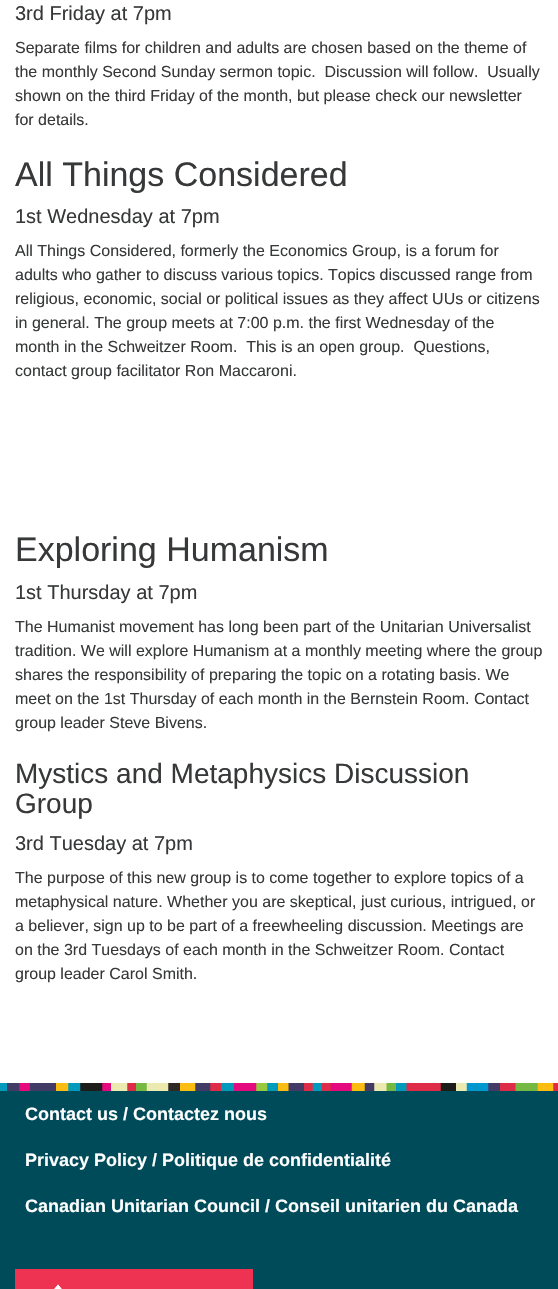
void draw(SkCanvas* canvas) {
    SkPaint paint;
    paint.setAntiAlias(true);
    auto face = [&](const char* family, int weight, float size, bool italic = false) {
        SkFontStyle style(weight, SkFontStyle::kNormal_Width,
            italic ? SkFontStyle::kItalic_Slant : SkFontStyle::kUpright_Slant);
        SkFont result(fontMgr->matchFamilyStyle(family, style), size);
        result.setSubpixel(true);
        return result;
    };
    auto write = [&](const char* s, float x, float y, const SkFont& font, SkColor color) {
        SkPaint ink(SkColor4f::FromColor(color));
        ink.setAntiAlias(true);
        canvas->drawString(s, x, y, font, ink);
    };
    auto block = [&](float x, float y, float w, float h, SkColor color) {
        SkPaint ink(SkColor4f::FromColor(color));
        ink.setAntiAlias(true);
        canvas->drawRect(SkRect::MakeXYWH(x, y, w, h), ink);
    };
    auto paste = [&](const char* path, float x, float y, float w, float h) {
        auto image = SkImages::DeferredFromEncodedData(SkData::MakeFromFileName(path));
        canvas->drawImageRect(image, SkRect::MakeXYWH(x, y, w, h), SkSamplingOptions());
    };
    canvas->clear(SK_ColorWHITE);
    auto kFont1 = face("Liberation Sans", 400, 20);
    write("3rd Friday at 7pm", 15, 20, kFont1, SkColorSetRGB(55, 56, 57));
    auto kFont2 = face("Liberation Sans", 400, 16);
    write("Separate films for children and adults are chosen based on the theme of", 15, 53, kFont2, SkColorSetRGB(55, 56, 57));
    write("the monthly Second Sunday sermon topic.  Discussion will follow.  Usually", 15, 77, kFont2, SkColorSetRGB(55, 56, 57));
    write("shown on the third Friday of the month, but please check our newsletter", 15, 101, kFont2, SkColorSetRGB(55, 56, 57));
    write("for details.", 15, 125, kFont2, SkColorSetRGB(55, 56, 57));
    auto kFont3 = face("Liberation Sans", 400, 34);
    write("All Things Considered", 15, 186, kFont3, SkColorSetRGB(55, 56, 57));
    write("1st Wednesday at 7pm", 15, 223, kFont1, SkColorSetRGB(55, 56, 57));
    write("All Things Considered, formerly the Economics Group, is a forum for", 15, 256, kFont2, SkColorSetRGB(55, 56, 57));
    write("adults who gather to discuss various topics. Topics discussed range from", 15, 280, kFont2, SkColorSetRGB(55, 56, 57));
    write("religious, economic, social or political issues as they affect UUs or citizens", 15, 304, kFont2, SkColorSetRGB(55, 56, 57));
    write("in general. The group meets at 7:00 p.m. the first Wednesday of the", 15, 328, kFont2, SkColorSetRGB(55, 56, 57));
    write("month in the Schweitzer Room.  This is an open group.  Questions,", 15, 352, kFont2, SkColorSetRGB(55, 56, 57));
    write("contact group facilitator Ron Maccaroni.", 15, 376, kFont2, SkColorSetRGB(55, 56, 57));
    write("Exploring Humanism", 15, 561, kFont3, SkColorSetRGB(55, 56, 57));
    write("1st Thursday at 7pm", 15, 599, kFont1, SkColorSetRGB(55, 56, 57));
    write("The Humanist movement has long been part of the Unitarian Universalist", 15, 632, kFont2, SkColorSetRGB(55, 56, 57));
    write("tradition. We will explore Humanism at a monthly meeting where the group", 15, 656, kFont2, SkColorSetRGB(55, 56, 57));
    write("shares the responsibility of preparing the topic on a rotating basis. We", 15, 680, kFont2, SkColorSetRGB(55, 56, 57));
    write("meet on the 1st Thursday of each month in the Bernstein Room. Contact", 15, 704, kFont2, SkColorSetRGB(55, 56, 57));
    write("group leader Steve Bivens.", 15, 728, kFont2, SkColorSetRGB(55, 56, 57));
    auto kFont4 = face("Liberation Sans", 400, 28);
    write("Mystics and Metaphysics Discussion", 15, 783, kFont4, SkColorSetRGB(55, 56, 57));
    write("Group", 15, 813, kFont4, SkColorSetRGB(55, 56, 57));
    write("3rd Tuesday at 7pm", 15, 850, kFont1, SkColorSetRGB(55, 56, 57));
    write("The purpose of this new group is to come together to explore topics of a", 15, 883, kFont2, SkColorSetRGB(55, 56, 57));
    write("metaphysical nature. Whether you are skeptical, just curious, intrigued, or", 15, 907, kFont2, SkColorSetRGB(55, 56, 57));
    write("a believer, sign up to be part of a freewheeling discussion. Meetings are", 15, 931, kFont2, SkColorSetRGB(55, 56, 57));
    write("on the 3rd Tuesdays of each month in the Schweitzer Room. Contact", 15, 955, kFont2, SkColorSetRGB(55, 56, 57));
    write("group leader Carol Smith.", 15, 979, kFont2, SkColorSetRGB(55, 56, 57));
    block(0, 1091, 558, 198, SkColorSetRGB(0, 75, 90));
    paste("pic1.png", 0, 1083, 558, 8);
    auto kFont5 = face("Liberation Sans", 700, 18);
    write("Contact us / Contactez nous", 25, 1120, kFont5, SK_ColorWHITE);
    write("Privacy Policy / Politique de confidentialité", 25, 1166, kFont5, SK_ColorWHITE);
    write("Canadian Unitarian Council / Conseil unitarien du Canada", 25, 1212, kFont5, SK_ColorWHITE);
    paste("pic2.png", 15, 1269, 238, 20);
}
